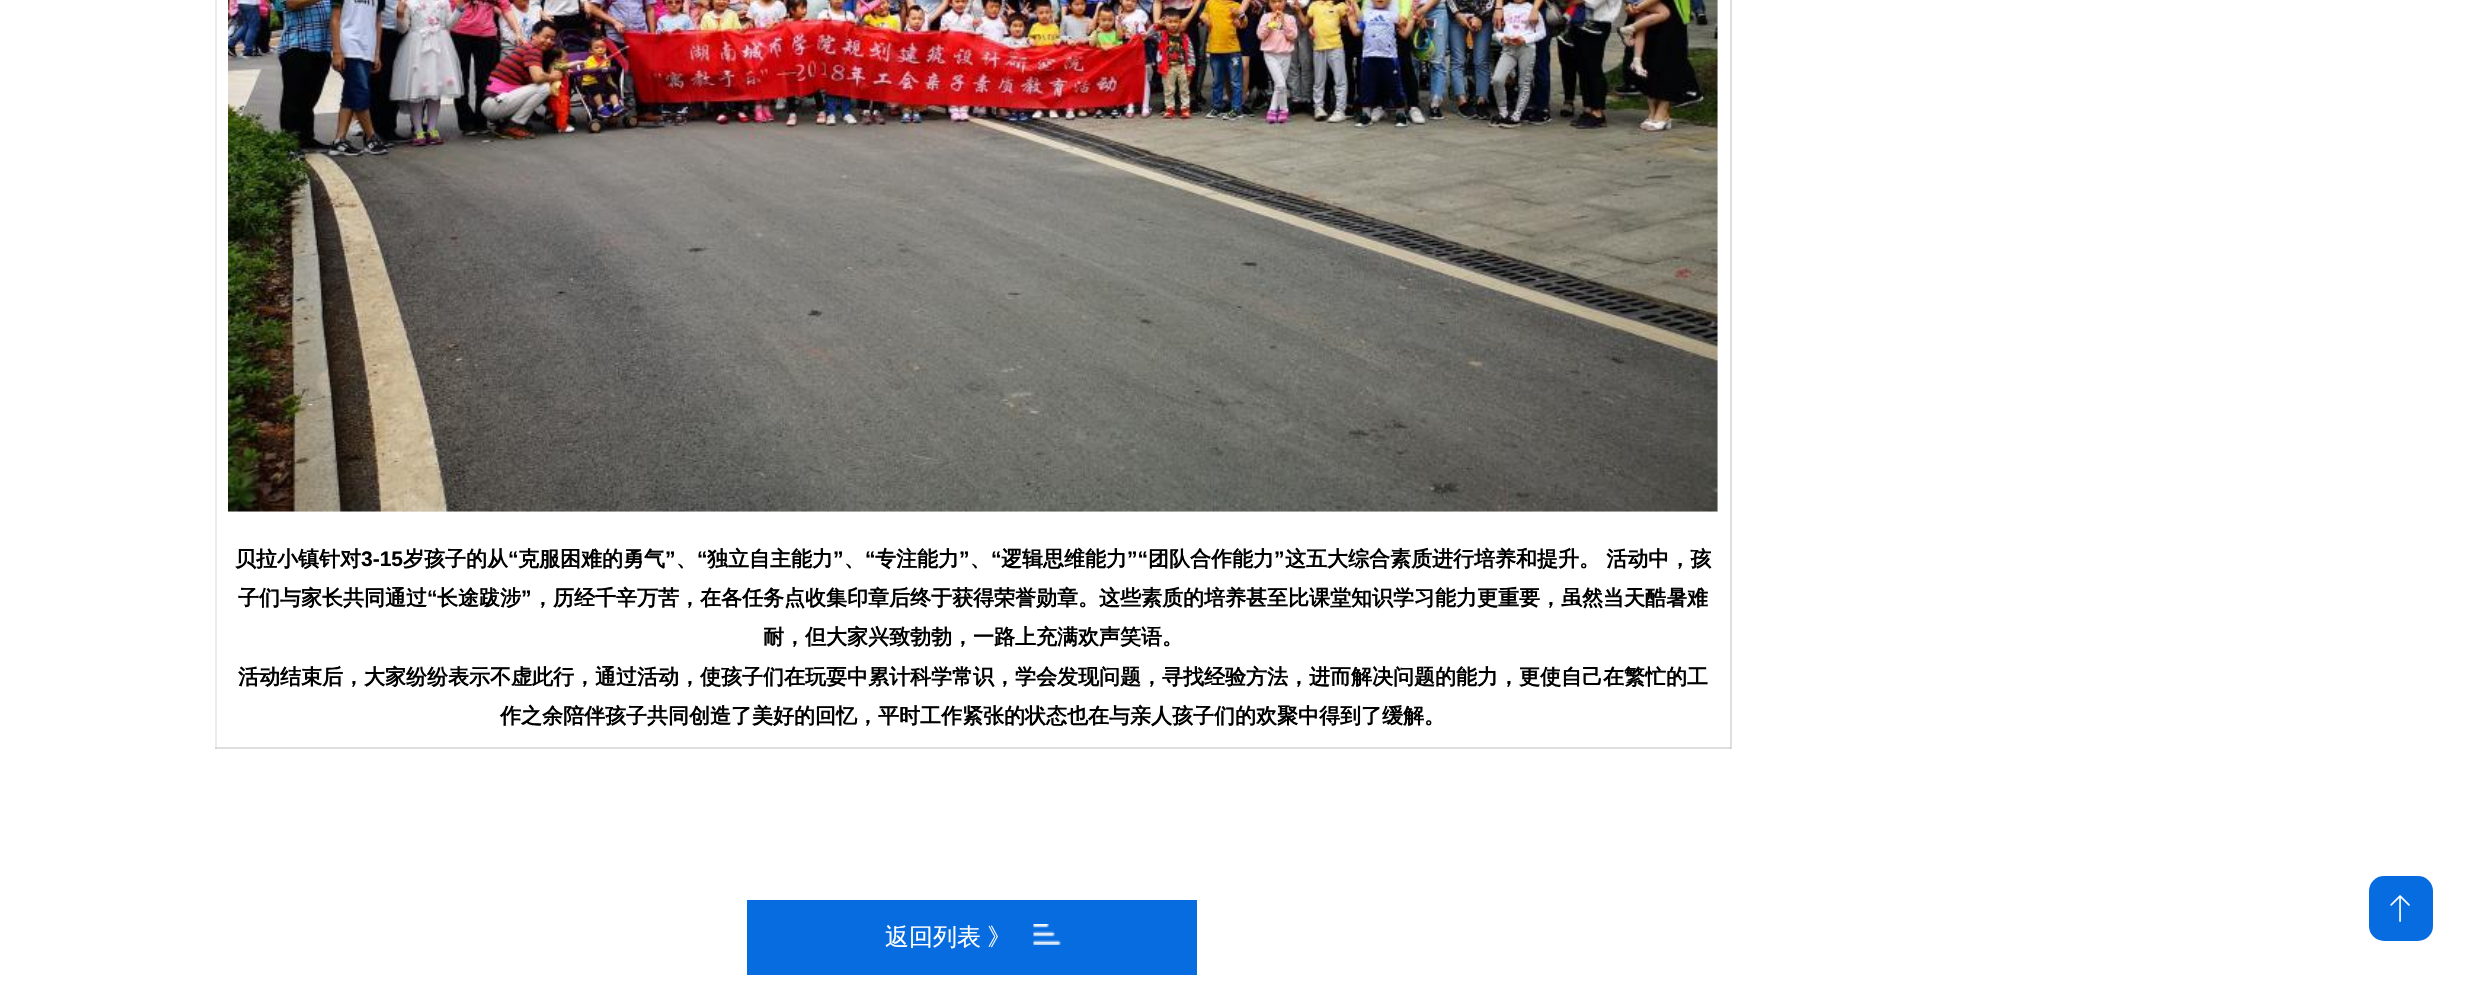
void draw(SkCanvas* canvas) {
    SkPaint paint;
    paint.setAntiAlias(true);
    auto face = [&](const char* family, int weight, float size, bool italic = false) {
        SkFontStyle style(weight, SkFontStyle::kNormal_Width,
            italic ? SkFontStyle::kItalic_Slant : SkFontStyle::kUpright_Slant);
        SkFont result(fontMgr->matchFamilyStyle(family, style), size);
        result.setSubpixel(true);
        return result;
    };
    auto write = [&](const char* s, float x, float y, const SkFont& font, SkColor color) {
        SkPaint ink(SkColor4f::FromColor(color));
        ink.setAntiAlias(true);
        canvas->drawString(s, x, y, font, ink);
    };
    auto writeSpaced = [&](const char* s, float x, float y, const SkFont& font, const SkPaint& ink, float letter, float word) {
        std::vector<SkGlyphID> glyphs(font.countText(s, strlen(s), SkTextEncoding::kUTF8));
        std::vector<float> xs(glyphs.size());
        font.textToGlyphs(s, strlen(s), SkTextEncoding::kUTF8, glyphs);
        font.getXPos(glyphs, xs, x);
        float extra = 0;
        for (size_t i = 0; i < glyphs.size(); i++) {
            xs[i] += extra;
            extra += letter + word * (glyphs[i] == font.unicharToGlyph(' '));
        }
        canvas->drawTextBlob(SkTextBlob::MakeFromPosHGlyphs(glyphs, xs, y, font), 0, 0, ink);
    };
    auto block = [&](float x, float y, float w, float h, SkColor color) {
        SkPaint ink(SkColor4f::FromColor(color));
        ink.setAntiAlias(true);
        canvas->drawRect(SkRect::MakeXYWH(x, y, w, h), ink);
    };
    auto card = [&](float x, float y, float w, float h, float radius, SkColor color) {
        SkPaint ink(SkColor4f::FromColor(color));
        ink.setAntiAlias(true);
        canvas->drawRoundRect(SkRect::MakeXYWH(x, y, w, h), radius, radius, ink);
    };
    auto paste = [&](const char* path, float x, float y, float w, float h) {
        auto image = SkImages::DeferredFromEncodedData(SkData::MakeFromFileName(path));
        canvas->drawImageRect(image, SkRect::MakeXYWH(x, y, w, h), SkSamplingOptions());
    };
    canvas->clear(SK_ColorWHITE);
    block(215, 0, 2, 749, SkColorSetRGB(237, 237, 237));
    block(215, 747, 1516, 2, SkColorSetRGB(223, 223, 223));
    block(215, 747, 2, 2, SkColorSetRGB(212, 212, 212));
    block(1730, 0, 2, 749, SkColorSetRGB(223, 223, 223));
    block(1730, 747, 1, 2, SkColorSetRGB(203, 203, 203));
    block(228, 0, 1490, 512, SkColorSetRGB(238, 238, 238));
    paste("pic1.png", 228, 0, 1490, 512);
    auto kFont1 = face("WenQuanYi Zen Hei", 700, 21);
    write("贝拉小镇针对", 235, 566, kFont1, SK_ColorBLACK);
    auto kFont2 = face("Liberation Sans", 700, 21);
    write("3-15", 361, 566, kFont2, SK_ColorBLACK);
    write("岁孩子的从", 403, 566, kFont1, SK_ColorBLACK);
    write("“", 508, 566, kFont2, SK_ColorBLACK);
    write("克服困难的勇气", 518, 566, kFont1, SK_ColorBLACK);
    write("”", 665, 566, kFont2, SK_ColorBLACK);
    write("“", 697, 566, kFont2, SK_ColorBLACK);
    write("独立自主能力", 707, 566, kFont1, SK_ColorBLACK);
    write("”", 833, 566, kFont2, SK_ColorBLACK);
    write("“", 865, 566, kFont2, SK_ColorBLACK);
    write("专注能力", 875, 566, kFont1, SK_ColorBLACK);
    write("”", 959, 566, kFont2, SK_ColorBLACK);
    write("“", 991, 566, kFont2, SK_ColorBLACK);
    write("逻辑思维能力", 1001, 566, kFont1, SK_ColorBLACK);
    write("”“", 1127, 566, kFont2, SK_ColorBLACK);
    write("团队合作能力", 1148, 566, kFont1, SK_ColorBLACK);
    write("”", 1274, 566, kFont2, SK_ColorBLACK);
    write("这五大综合素质进行培养和提升。 活动中，孩", 1285, 566, kFont1, SK_ColorBLACK);
    write("、", 676, 566, kFont1, SK_ColorBLACK);
    write("、", 844, 566, kFont1, SK_ColorBLACK);
    write("、", 970, 566, kFont1, SK_ColorBLACK);
    write("子们与家长共同通过", 238, 605, kFont1, SK_ColorBLACK);
    write("“", 427, 605, kFont2, SK_ColorBLACK);
    write("长途跋涉", 437, 605, kFont1, SK_ColorBLACK);
    write("”", 521, 605, kFont2, SK_ColorBLACK);
    write("，历经千辛万苦，在各任务点收集印章后终于获得荣誉勋章。这些素质的培养甚至比课堂知识学习能力更重要，虽然当天酷暑难", 532, 605, kFont1, SK_ColorBLACK);
    write("耐，但大家兴致勃勃，一路上充满欢声笑语。", 763, 644, kFont1, SK_ColorBLACK);
    write("活动结束后，大家纷纷表示不虚此行，通过活动，使孩子们在玩耍中累计科学常识，学会发现问题，寻找经验方法，进而解决问题的能力，更使自己在繁忙的工", 238, 684, kFont1, SK_ColorBLACK);
    write("作之余陪伴孩子共同创造了美好的回忆，平时工作紧张的状态也在与亲人孩子们的欢聚中得到了缓解。", 500, 723, kFont1, SK_ColorBLACK);
    block(747, 900, 450, 75, SkColorSetRGB(7, 108, 224));
    auto kFont3 = face("WenQuanYi Zen Hei", 500, 24);
    paint.setColor(SK_ColorWHITE);
    writeSpaced("返回列表 》", 885, 945, kFont3, paint, 0, -1);
    paste("pic2.png", 1033, 924, 28, 21);
    card(2369, 876, 64, 65, 15, SkColorSetRGB(7, 108, 224));
    paste("pic3.png", 2390, 895, 20, 27);
}
